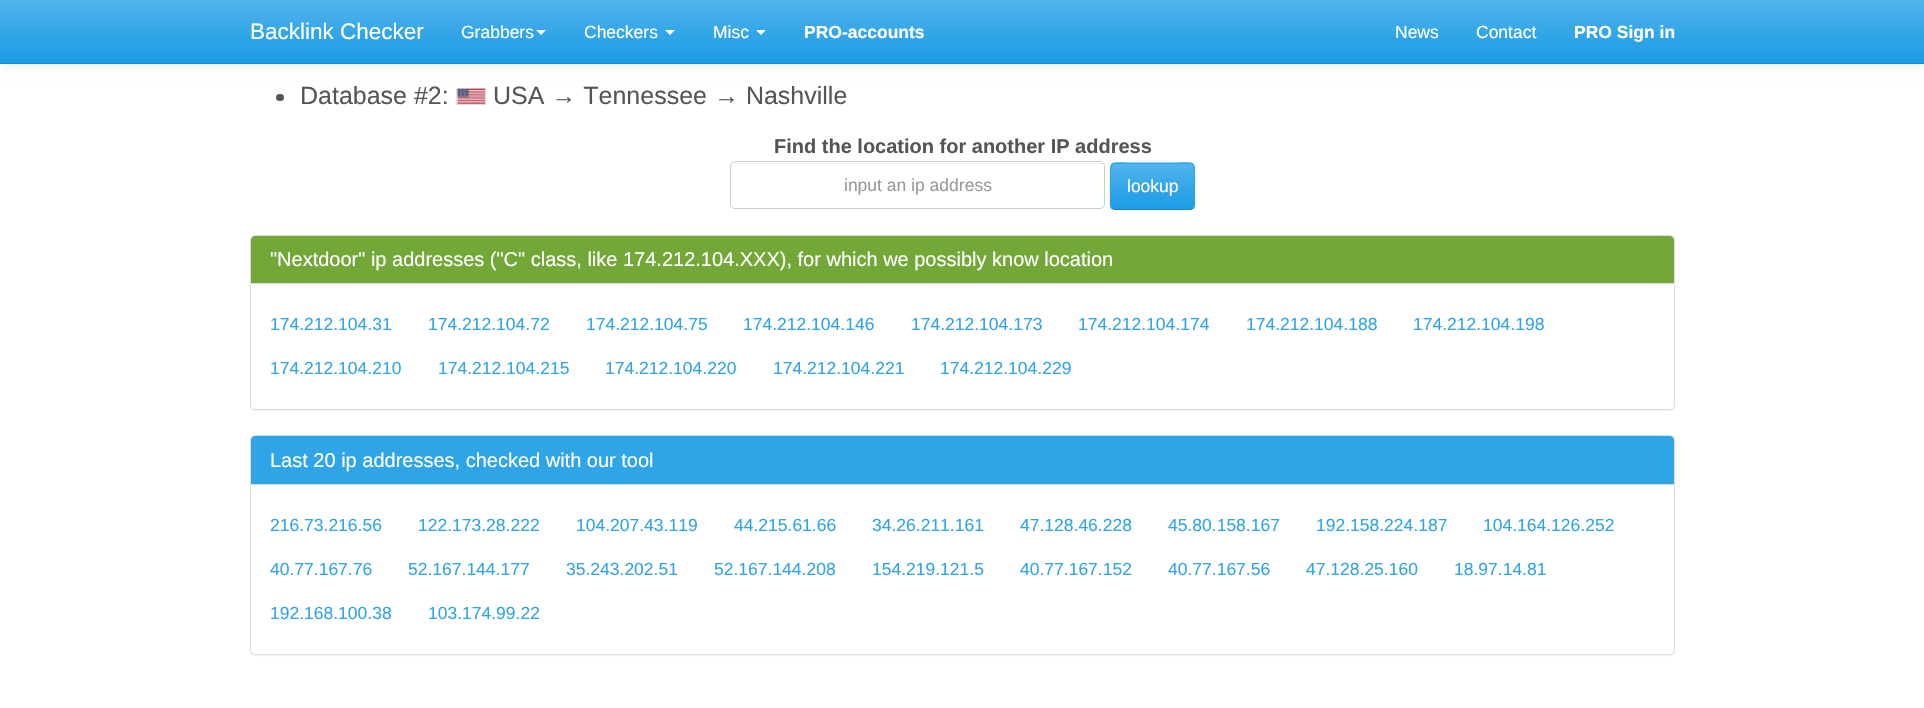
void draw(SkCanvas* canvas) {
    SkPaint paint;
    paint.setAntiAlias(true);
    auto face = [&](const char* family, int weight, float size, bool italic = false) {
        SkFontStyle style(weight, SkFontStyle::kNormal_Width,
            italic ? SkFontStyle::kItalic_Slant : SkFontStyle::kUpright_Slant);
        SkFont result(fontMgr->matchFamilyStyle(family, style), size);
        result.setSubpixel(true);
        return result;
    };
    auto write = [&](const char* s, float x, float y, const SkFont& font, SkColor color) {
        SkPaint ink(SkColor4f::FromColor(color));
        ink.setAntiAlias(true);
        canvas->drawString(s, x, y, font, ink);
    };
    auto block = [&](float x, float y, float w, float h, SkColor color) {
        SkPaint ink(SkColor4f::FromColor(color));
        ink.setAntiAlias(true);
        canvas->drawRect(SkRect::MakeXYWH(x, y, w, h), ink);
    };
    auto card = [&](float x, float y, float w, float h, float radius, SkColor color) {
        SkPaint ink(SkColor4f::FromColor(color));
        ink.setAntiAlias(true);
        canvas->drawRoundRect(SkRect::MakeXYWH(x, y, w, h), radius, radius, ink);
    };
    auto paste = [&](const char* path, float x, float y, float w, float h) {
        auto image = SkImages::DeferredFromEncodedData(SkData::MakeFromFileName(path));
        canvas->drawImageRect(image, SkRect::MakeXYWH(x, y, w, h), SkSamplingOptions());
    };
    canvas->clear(SK_ColorWHITE);
    paint.setColor(SkColorSetARGB(26, 0, 0, 0));
    paint.setMaskFilter(SkMaskFilter::MakeBlur(kNormal_SkBlurStyle, 6));
    canvas->drawRect(SkRect::MakeXYWH(0, 1, 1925, 64), paint);
    paint.setMaskFilter(nullptr);
    {
        const SkColor colors[] = {SkColorSetRGB(84, 180, 235), SkColorSetRGB(47, 164, 231), SkColorSetRGB(29, 156, 229)};
        const float stops[] = {0, 0.6f, 1};
        const SkPoint ends[] = {{963, 0}, {963, 63}};
        paint.setShader(SkGradientShader::MakeLinear(ends, colors, stops, 3, SkTileMode::kClamp));
        paint.setAlpha(255);
    }
    canvas->drawRect(SkRect::MakeXYWH(0, 0, 1924, 63), paint);
    block(0, 63, 1924, 1, SkColorSetRGB(23, 138, 204));
    auto kFont1 = face("Liberation Sans", 400, 22.5f);
    write("Backlink Checker", 250, 39, kFont1, SK_ColorWHITE);
    auto kFont2 = face("Liberation Sans", 400, 17.5f);
    write("Grabbers", 461, 38, kFont2, SK_ColorWHITE);
    paint.setShader(nullptr);
    paint.setColor(SK_ColorWHITE);
    canvas->drawPath(SkPathBuilder().moveTo(536, 30).lineTo(546, 30).lineTo(541, 35).close().detach(), paint);
    write("Checkers", 584, 38, kFont2, SK_ColorWHITE);
    canvas->drawPath(SkPathBuilder().moveTo(665, 30).lineTo(675, 30).lineTo(670, 35).close().detach(), paint);
    write("Misc", 713, 38, kFont2, SK_ColorWHITE);
    canvas->drawPath(SkPathBuilder().moveTo(756, 30).lineTo(766, 30).lineTo(761, 35).close().detach(), paint);
    auto kFont3 = face("Liberation Sans", 700, 17.5f);
    write("PRO-accounts", 804, 38, kFont3, SK_ColorWHITE);
    write("News", 1395, 38, kFont2, SK_ColorWHITE);
    write("Contact", 1476, 38, kFont2, SK_ColorWHITE);
    write("PRO Sign in", 1574, 38, kFont3, SK_ColorWHITE);
    auto kFont4 = face("Liberation Sans", 400, 25);
    write("Database #2:", 300, 104, kFont4, SkColorSetRGB(85, 85, 85));
    paint.setStyle(SkPaint::kStroke_Style);
    paint.setStrokeWidth(1);
    paint.setColor(SkColorSetRGB(221, 221, 221));
    canvas->drawRect(SkRect::MakeXYWH(456.5f, 88.5f, 29, 16), paint);
    write("USA → Tennessee → Nashville", 493, 104, kFont4, SkColorSetRGB(85, 85, 85));
    card(276, 94, 8, 7, 3.5f, SkColorSetRGB(85, 85, 85));
    paste("pic1.png", 457, 88, 28, 16);
    auto kFont5 = face("Liberation Sans", 700, 20);
    write("Find the location for another IP address", 774, 153, kFont5, SkColorSetRGB(85, 85, 85));
    paint.setStyle(SkPaint::kFill_Style);
    paint.setColor(SkColorSetRGB(236, 236, 236));
    canvas->drawPath(SkPathBuilder().moveTo(735, 164).lineTo(1100, 164).cubicTo(1102, 164, 1104, 165, 1104, 168).cubicTo(1104, 165, 1103, 163, 1100, 163).lineTo(735, 163).cubicTo(732, 163, 731, 165, 731, 168).cubicTo(731, 165, 733, 164, 735, 164).close().detach(), paint);
    paint.setStyle(SkPaint::kStroke_Style);
    paint.setColor(SkColorSetRGB(204, 204, 204));
    canvas->drawRoundRect(SkRect::MakeXYWH(730.5f, 161.5f, 374, 47), 4.5f, 4.5f, paint);
    write("input an ip address", 844, 191, kFont2, SkColorSetRGB(153, 153, 153));
    card(1110, 163, 85, 47, 5, SkColorSetRGB(47, 164, 231));
    canvas->save();
    canvas->clipPath(SkPathBuilder().moveTo(1115, 163).lineTo(1190, 163).cubicTo(1193, 163, 1195, 165, 1195, 168).lineTo(1195, 205).cubicTo(1195, 208, 1193, 210, 1190, 210).lineTo(1115, 210).cubicTo(1112, 210, 1110, 208, 1110, 205).lineTo(1110, 168).cubicTo(1110, 165, 1112, 163, 1115, 163).close().detach(), true);
    paint.setStyle(SkPaint::kFill_Style);
    {
        const SkColor colors[] = {SkColorSetRGB(84, 180, 235), SkColorSetRGB(47, 164, 231), SkColorSetRGB(29, 156, 229)};
        const float stops[] = {0, 0.6f, 1};
        const SkPoint ends[] = {{1153, 164}, {1153, 209}};
        paint.setShader(SkGradientShader::MakeLinear(ends, colors, stops, 3, SkTileMode::kClamp));
        paint.setAlpha(255);
    }
    canvas->drawRect(SkRect::MakeXYWH(1111, 164, 83, 45), paint);
    canvas->restore();
    paint.setStyle(SkPaint::kStroke_Style);
    paint.setStrokeWidth(1.2f);
    paint.setShader(nullptr);
    paint.setColor(SkColorSetRGB(23, 138, 204));
    canvas->drawPath(SkPathBuilder().moveTo(1193, 208).lineTo(1190.5f, 209.5f).lineTo(1114.5f, 209.5f).lineTo(1112, 208).detach(), paint);
    paint.setColor(SkColorSetRGB(47, 164, 231));
    canvas->drawPath(SkPathBuilder().moveTo(1112, 208).cubicTo(1109.5f, 206, 1110.5f, 201, 1110.5f, 199).lineTo(1110.5f, 174).cubicTo(1110.5f, 160, 1112.5f, 163, 1127.5f, 163).lineTo(1177.5f, 163).cubicTo(1192.5f, 163, 1194.5f, 160, 1194.5f, 174).lineTo(1194.5f, 199).cubicTo(1194.5f, 201, 1195.5f, 206, 1193, 208).detach(), paint);
    write("lookup", 1127, 192, kFont2, SK_ColorWHITE);
    paint.setStyle(SkPaint::kFill_Style);
    paint.setColor(SkColorSetARGB(13, 0, 0, 0));
    paint.setMaskFilter(SkMaskFilter::MakeBlur(kNormal_SkBlurStyle, 0.5f));
    canvas->drawRoundRect(SkRect::MakeXYWH(250, 236, 1425, 175), 5, 5, paint);
    paint.setMaskFilter(nullptr);
    paint.setColor(SK_ColorWHITE);
    canvas->drawRoundRect(SkRect::MakeXYWH(250.5f, 235.5f, 1424, 174), 4.5f, 4.5f, paint);
    paint.setStyle(SkPaint::kStroke_Style);
    paint.setStrokeWidth(1);
    paint.setColor(SkColorSetRGB(221, 221, 221));
    canvas->drawRoundRect(SkRect::MakeXYWH(250.5f, 235.5f, 1424, 174), 4.5f, 4.5f, paint);
    paint.setStyle(SkPaint::kFill_Style);
    paint.setColor(SkColorSetRGB(115, 168, 57));
    canvas->drawPath(SkPathBuilder().moveTo(255, 236).lineTo(1670, 236).cubicTo(1672, 236, 1674, 238, 1674, 240).lineTo(1674, 284).lineTo(251, 284).lineTo(251, 240).cubicTo(251, 238, 253, 236, 255, 236).close().detach(), paint);
    block(251, 283, 1423, 1, SkColorSetRGB(221, 221, 221));
    auto kFont6 = face("Liberation Sans", 400, 20);
    write("\"Nextdoor\" ip addresses (\"C\" class, like 174.212.104.XXX), for which we possibly know location", 270, 266, kFont6, SK_ColorWHITE);
    write("174.212.104.31", 270, 330, kFont2, SkColorSetRGB(47, 164, 231));
    write("174.212.104.72", 428, 330, kFont2, SkColorSetRGB(47, 164, 231));
    write("174.212.104.75", 586, 330, kFont2, SkColorSetRGB(47, 164, 231));
    write("174.212.104.146", 743, 330, kFont2, SkColorSetRGB(47, 164, 231));
    write("174.212.104.173", 911, 330, kFont2, SkColorSetRGB(47, 164, 231));
    write("174.212.104.174", 1078, 330, kFont2, SkColorSetRGB(47, 164, 231));
    write("174.212.104.188", 1246, 330, kFont2, SkColorSetRGB(47, 164, 231));
    write("174.212.104.198", 1413, 330, kFont2, SkColorSetRGB(47, 164, 231));
    write("174.212.104.210", 270, 374, kFont2, SkColorSetRGB(47, 164, 231));
    write("174.212.104.215", 438, 374, kFont2, SkColorSetRGB(47, 164, 231));
    write("174.212.104.220", 605, 374, kFont2, SkColorSetRGB(47, 164, 231));
    write("174.212.104.221", 773, 374, kFont2, SkColorSetRGB(47, 164, 231));
    write("174.212.104.229", 940, 374, kFont2, SkColorSetRGB(47, 164, 231));
    paint.setColor(SkColorSetARGB(13, 0, 0, 0));
    paint.setMaskFilter(SkMaskFilter::MakeBlur(kNormal_SkBlurStyle, 0.5f));
    canvas->drawRoundRect(SkRect::MakeXYWH(250, 436, 1425, 220), 5, 5, paint);
    paint.setMaskFilter(nullptr);
    paint.setColor(SK_ColorWHITE);
    canvas->drawRoundRect(SkRect::MakeXYWH(250.5f, 435.5f, 1424, 219), 4.5f, 4.5f, paint);
    paint.setStyle(SkPaint::kStroke_Style);
    paint.setColor(SkColorSetRGB(221, 221, 221));
    canvas->drawRoundRect(SkRect::MakeXYWH(250.5f, 435.5f, 1424, 219), 4.5f, 4.5f, paint);
    paint.setStyle(SkPaint::kFill_Style);
    paint.setColor(SkColorSetRGB(47, 164, 231));
    canvas->drawPath(SkPathBuilder().moveTo(255, 436).lineTo(1670, 436).cubicTo(1672, 436, 1674, 438, 1674, 440).lineTo(1674, 485).lineTo(251, 485).lineTo(251, 440).cubicTo(251, 438, 253, 436, 255, 436).close().detach(), paint);
    block(251, 484, 1423, 1, SkColorSetRGB(221, 221, 221));
    write("Last 20 ip addresses, checked with our tool", 270, 467, kFont6, SK_ColorWHITE);
    write("216.73.216.56", 270, 531, kFont2, SkColorSetRGB(47, 164, 231));
    write("122.173.28.222", 418, 531, kFont2, SkColorSetRGB(47, 164, 231));
    write("104.207.43.119", 576, 531, kFont2, SkColorSetRGB(47, 164, 231));
    write("44.215.61.66", 734, 531, kFont2, SkColorSetRGB(47, 164, 231));
    write("34.26.211.161", 872, 531, kFont2, SkColorSetRGB(47, 164, 231));
    write("47.128.46.228", 1020, 531, kFont2, SkColorSetRGB(47, 164, 231));
    write("45.80.158.167", 1168, 531, kFont2, SkColorSetRGB(47, 164, 231));
    write("192.158.224.187", 1316, 531, kFont2, SkColorSetRGB(47, 164, 231));
    write("104.164.126.252", 1483, 531, kFont2, SkColorSetRGB(47, 164, 231));
    write("40.77.167.76", 270, 575, kFont2, SkColorSetRGB(47, 164, 231));
    write("52.167.144.177", 408, 575, kFont2, SkColorSetRGB(47, 164, 231));
    write("35.243.202.51", 566, 575, kFont2, SkColorSetRGB(47, 164, 231));
    write("52.167.144.208", 714, 575, kFont2, SkColorSetRGB(47, 164, 231));
    write("154.219.121.5", 872, 575, kFont2, SkColorSetRGB(47, 164, 231));
    write("40.77.167.152", 1020, 575, kFont2, SkColorSetRGB(47, 164, 231));
    write("40.77.167.56", 1168, 575, kFont2, SkColorSetRGB(47, 164, 231));
    write("47.128.25.160", 1306, 575, kFont2, SkColorSetRGB(47, 164, 231));
    write("18.97.14.81", 1454, 575, kFont2, SkColorSetRGB(47, 164, 231));
    write("192.168.100.38", 270, 619, kFont2, SkColorSetRGB(47, 164, 231));
    write("103.174.99.22", 428, 619, kFont2, SkColorSetRGB(47, 164, 231));
}
